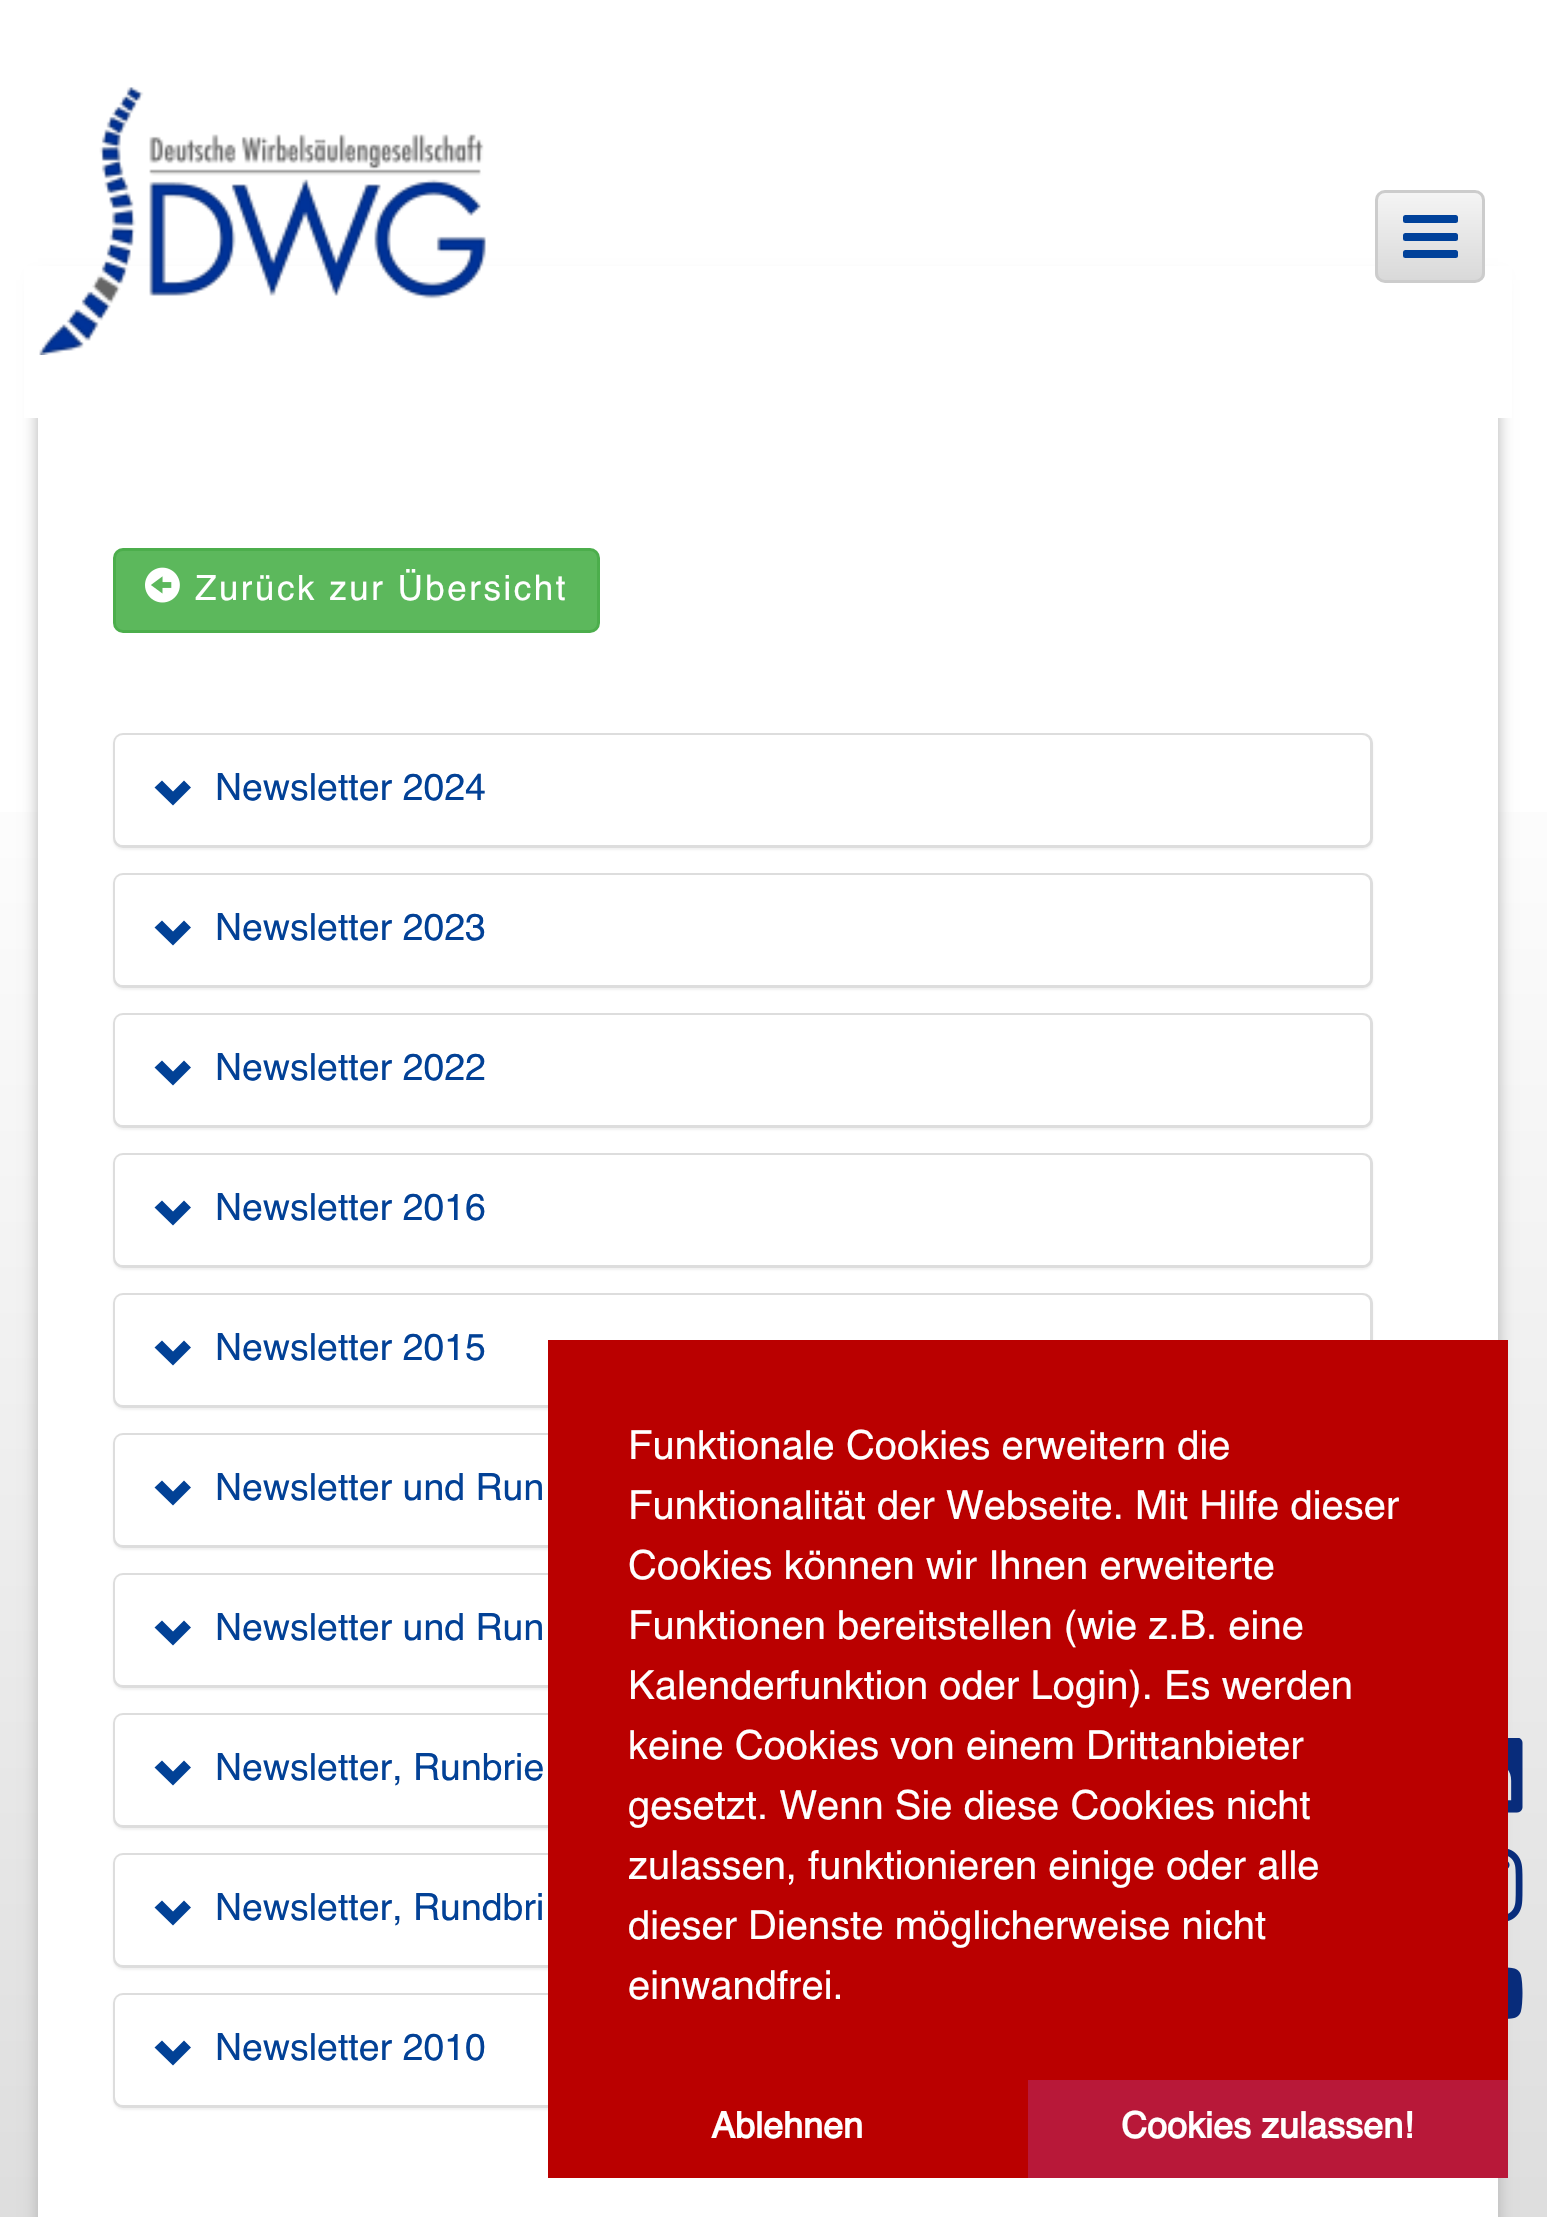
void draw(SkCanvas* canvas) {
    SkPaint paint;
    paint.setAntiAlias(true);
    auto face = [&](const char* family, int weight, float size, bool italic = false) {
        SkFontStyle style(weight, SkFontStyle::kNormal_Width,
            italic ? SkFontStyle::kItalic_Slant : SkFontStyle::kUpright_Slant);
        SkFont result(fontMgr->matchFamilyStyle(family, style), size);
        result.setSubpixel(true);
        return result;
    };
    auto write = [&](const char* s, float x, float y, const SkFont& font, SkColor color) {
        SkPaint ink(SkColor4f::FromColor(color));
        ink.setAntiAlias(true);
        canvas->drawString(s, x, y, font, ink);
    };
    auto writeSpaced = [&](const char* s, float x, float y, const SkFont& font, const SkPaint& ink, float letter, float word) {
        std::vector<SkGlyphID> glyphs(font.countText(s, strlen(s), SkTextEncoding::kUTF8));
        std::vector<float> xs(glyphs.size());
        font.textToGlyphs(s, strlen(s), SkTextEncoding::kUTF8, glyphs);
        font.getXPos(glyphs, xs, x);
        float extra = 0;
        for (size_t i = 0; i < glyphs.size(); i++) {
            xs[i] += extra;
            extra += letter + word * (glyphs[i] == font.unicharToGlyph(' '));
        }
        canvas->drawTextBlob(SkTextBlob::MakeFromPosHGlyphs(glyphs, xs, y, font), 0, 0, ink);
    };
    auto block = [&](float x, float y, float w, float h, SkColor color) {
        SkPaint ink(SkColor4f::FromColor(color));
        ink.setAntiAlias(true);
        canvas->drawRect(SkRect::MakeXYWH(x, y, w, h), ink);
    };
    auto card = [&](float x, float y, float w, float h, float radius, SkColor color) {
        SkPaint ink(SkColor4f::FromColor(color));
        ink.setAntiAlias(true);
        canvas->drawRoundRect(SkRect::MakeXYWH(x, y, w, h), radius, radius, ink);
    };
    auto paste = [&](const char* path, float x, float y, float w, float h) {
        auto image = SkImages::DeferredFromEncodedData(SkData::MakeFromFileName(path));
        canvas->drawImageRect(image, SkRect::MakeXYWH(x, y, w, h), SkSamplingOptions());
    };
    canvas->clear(SK_ColorWHITE);
    {
        const SkColor colors[] = {SK_ColorWHITE, SkColorSetRGB(216, 216, 216)};
        const float stops[] = {0.2f, 1};
        const SkPoint ends[] = {{774, 255}, {774, 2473}};
        paint.setShader(SkGradientShader::MakeLinear(ends, colors, stops, 2, SkTileMode::kClamp));
        paint.setAlpha(255);
    }
    canvas->drawRect(SkRect::MakeXYWH(0, 812, 1547, 1405), paint);
    paint.setShader(nullptr);
    paint.setColor(SkColorSetRGB(179, 179, 179));
    paint.setMaskFilter(SkMaskFilter::MakeBlur(kNormal_SkBlurStyle, 7.5f));
    canvas->drawRect(SkRect::MakeXYWH(38, 280, 1460, 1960), paint);
    paint.setMaskFilter(nullptr);
    block(24, 266, 1488, 152, SK_ColorWHITE);
    paste("pic1.png", 39, 87, 447, 268);
    canvas->save();
    canvas->clipPath(SkPathBuilder().moveTo(1385, 190).lineTo(1475, 190).cubicTo(1480.5f, 190, 1485, 194.5f, 1485, 200).lineTo(1485, 273).cubicTo(1485, 278.5f, 1480.5f, 283, 1475, 283).lineTo(1385, 283).cubicTo(1379.5f, 283, 1375, 278.5f, 1375, 273).lineTo(1375, 200).cubicTo(1375, 194.5f, 1379.5f, 190, 1385, 190).close().detach(), true);
    {
        const SkColor colors[] = {SkColorSetRGB(244, 244, 244), SkColorSetRGB(217, 217, 217)};
        const float stops[] = {0, 1};
        const SkPoint ends[] = {{1430, 193}, {1430, 280}};
        paint.setShader(SkGradientShader::MakeLinear(ends, colors, stops, 2, SkTileMode::kClamp));
        paint.setAlpha(255);
    }
    canvas->drawRect(SkRect::MakeXYWH(1375, 193, 110, 87), paint);
    canvas->restore();
    paint.setStyle(SkPaint::kStroke_Style);
    paint.setStrokeWidth(3);
    paint.setShader(nullptr);
    paint.setColor(SkColorSetRGB(204, 204, 204));
    canvas->drawRoundRect(SkRect::MakeXYWH(1376.5f, 191.5f, 107, 90), 8.5f, 8.5f, paint);
    card(1403, 215, 55, 8, 2.5f, SkColorSetRGB(0, 65, 154));
    card(1403, 233, 55, 8, 2.5f, SkColorSetRGB(0, 65, 154));
    card(1403, 250, 55, 8, 2.5f, SkColorSetRGB(0, 65, 154));
    block(38, 418, 1460, 1799, SK_ColorWHITE);
    paint.setStyle(SkPaint::kFill_Style);
    paint.setColor(SkColorSetRGB(92, 184, 92));
    canvas->drawRoundRect(SkRect::MakeXYWH(114.5f, 549.5f, 484, 82), 8.5f, 8.5f, paint);
    paint.setStyle(SkPaint::kStroke_Style);
    paint.setColor(SkColorSetRGB(76, 174, 76));
    canvas->drawRoundRect(SkRect::MakeXYWH(114.5f, 549.5f, 484, 82), 8.5f, 8.5f, paint);
    paste("pic2.png", 145, 567, 35, 36);
    auto kFont1 = face("Helvetica", 400, 35);
    paint.setStyle(SkPaint::kFill_Style);
    paint.setColor(SK_ColorWHITE);
    writeSpaced("Zurück zur Übersicht", 195, 600, kFont1, paint, 2.5f, 0);
    paint.setColor(SkColorSetARGB(13, 0, 0, 0));
    paint.setMaskFilter(SkMaskFilter::MakeBlur(kNormal_SkBlurStyle, 1));
    canvas->drawRoundRect(SkRect::MakeXYWH(113, 735, 1260, 115), 10, 10, paint);
    paint.setMaskFilter(nullptr);
    paint.setColor(SK_ColorWHITE);
    canvas->drawRoundRect(SkRect::MakeXYWH(114.5f, 734.5f, 1257, 112), 8.5f, 8.5f, paint);
    paint.setStyle(SkPaint::kStroke_Style);
    paint.setColor(SkColorSetRGB(221, 221, 221));
    canvas->drawRoundRect(SkRect::MakeXYWH(114.5f, 734.5f, 1257, 112), 8.5f, 8.5f, paint);
    card(115, 735, 1255, 110, 8, SK_ColorWHITE);
    paint.setStyle(SkPaint::kFill_Style);
    paint.setColor(SkColorSetRGB(2, 65, 150));
    canvas->drawPath(SkPathBuilder().moveTo(154.5f, 787.5f).lineTo(173, 805.5f).lineTo(191, 787.5f).lineTo(184, 780.5f).lineTo(173, 791.5f).lineTo(162, 780.5f).close().detach(), paint);
    auto kFont2 = face("Helvetica", 400, 37.5f);
    write("Newsletter 2024", 215, 800, kFont2, SkColorSetRGB(2, 65, 150));
    paint.setColor(SkColorSetARGB(13, 0, 0, 0));
    paint.setMaskFilter(SkMaskFilter::MakeBlur(kNormal_SkBlurStyle, 1));
    canvas->drawRoundRect(SkRect::MakeXYWH(113, 875, 1260, 115), 10, 10, paint);
    paint.setMaskFilter(nullptr);
    paint.setColor(SK_ColorWHITE);
    canvas->drawRoundRect(SkRect::MakeXYWH(114.5f, 874.5f, 1257, 112), 8.5f, 8.5f, paint);
    paint.setStyle(SkPaint::kStroke_Style);
    paint.setColor(SkColorSetRGB(221, 221, 221));
    canvas->drawRoundRect(SkRect::MakeXYWH(114.5f, 874.5f, 1257, 112), 8.5f, 8.5f, paint);
    card(115, 875, 1255, 110, 8, SK_ColorWHITE);
    paint.setStyle(SkPaint::kFill_Style);
    paint.setColor(SkColorSetRGB(2, 65, 150));
    canvas->drawPath(SkPathBuilder().moveTo(154.5f, 927.5f).lineTo(173, 945.5f).lineTo(191, 927.5f).lineTo(184, 920.5f).lineTo(173, 931.5f).lineTo(162, 920.5f).close().detach(), paint);
    write("Newsletter 2023", 215, 940, kFont2, SkColorSetRGB(2, 65, 150));
    paint.setColor(SkColorSetARGB(13, 0, 0, 0));
    paint.setMaskFilter(SkMaskFilter::MakeBlur(kNormal_SkBlurStyle, 1));
    canvas->drawRoundRect(SkRect::MakeXYWH(113, 1015, 1260, 115), 10, 10, paint);
    paint.setMaskFilter(nullptr);
    paint.setColor(SK_ColorWHITE);
    canvas->drawRoundRect(SkRect::MakeXYWH(114.5f, 1014.5f, 1257, 112), 8.5f, 8.5f, paint);
    paint.setStyle(SkPaint::kStroke_Style);
    paint.setColor(SkColorSetRGB(221, 221, 221));
    canvas->drawRoundRect(SkRect::MakeXYWH(114.5f, 1014.5f, 1257, 112), 8.5f, 8.5f, paint);
    card(115, 1015, 1255, 110, 8, SK_ColorWHITE);
    paint.setStyle(SkPaint::kFill_Style);
    paint.setColor(SkColorSetRGB(2, 65, 150));
    canvas->drawPath(SkPathBuilder().moveTo(154.5f, 1067.5f).lineTo(173, 1085.5f).lineTo(191, 1067.5f).lineTo(184, 1060.5f).lineTo(173, 1071.5f).lineTo(162, 1060.5f).close().detach(), paint);
    write("Newsletter 2022", 215, 1080, kFont2, SkColorSetRGB(2, 65, 150));
    paint.setColor(SkColorSetARGB(13, 0, 0, 0));
    paint.setMaskFilter(SkMaskFilter::MakeBlur(kNormal_SkBlurStyle, 1));
    canvas->drawRoundRect(SkRect::MakeXYWH(113, 1155, 1260, 115), 10, 10, paint);
    paint.setMaskFilter(nullptr);
    paint.setColor(SK_ColorWHITE);
    canvas->drawRoundRect(SkRect::MakeXYWH(114.5f, 1154.5f, 1257, 112), 8.5f, 8.5f, paint);
    paint.setStyle(SkPaint::kStroke_Style);
    paint.setColor(SkColorSetRGB(221, 221, 221));
    canvas->drawRoundRect(SkRect::MakeXYWH(114.5f, 1154.5f, 1257, 112), 8.5f, 8.5f, paint);
    card(115, 1155, 1255, 110, 8, SK_ColorWHITE);
    paint.setStyle(SkPaint::kFill_Style);
    paint.setColor(SkColorSetRGB(2, 65, 150));
    canvas->drawPath(SkPathBuilder().moveTo(154.5f, 1207.5f).lineTo(173, 1225.5f).lineTo(191, 1207.5f).lineTo(184, 1200.5f).lineTo(173, 1211.5f).lineTo(162, 1200.5f).close().detach(), paint);
    write("Newsletter 2016", 215, 1220, kFont2, SkColorSetRGB(2, 65, 150));
    paint.setColor(SkColorSetARGB(13, 0, 0, 0));
    paint.setMaskFilter(SkMaskFilter::MakeBlur(kNormal_SkBlurStyle, 1));
    canvas->drawRoundRect(SkRect::MakeXYWH(113, 1295, 1260, 115), 10, 10, paint);
    paint.setMaskFilter(nullptr);
    paint.setStyle(SkPaint::kStroke_Style);
    paint.setColor(SkColorSetRGB(221, 221, 221));
    canvas->drawRoundRect(SkRect::MakeXYWH(114.5f, 1294.5f, 1257, 112), 8.5f, 8.5f, paint);
    card(115, 1295, 1255, 110, 8, SK_ColorWHITE);
    paint.setStyle(SkPaint::kFill_Style);
    paint.setColor(SkColorSetRGB(2, 65, 150));
    canvas->drawPath(SkPathBuilder().moveTo(154.5f, 1347.5f).lineTo(173, 1365.5f).lineTo(191, 1347.5f).lineTo(184, 1340.5f).lineTo(173, 1351.5f).lineTo(162, 1340.5f).close().detach(), paint);
    write("Newsletter 2015", 215, 1360, kFont2, SkColorSetRGB(2, 65, 150));
    paint.setColor(SkColorSetARGB(13, 0, 0, 0));
    paint.setMaskFilter(SkMaskFilter::MakeBlur(kNormal_SkBlurStyle, 1));
    canvas->drawRoundRect(SkRect::MakeXYWH(113, 1435, 1260, 115), 10, 10, paint);
    paint.setMaskFilter(nullptr);
    paint.setStyle(SkPaint::kStroke_Style);
    paint.setColor(SkColorSetRGB(221, 221, 221));
    canvas->drawRoundRect(SkRect::MakeXYWH(114.5f, 1434.5f, 1257, 112), 8.5f, 8.5f, paint);
    card(115, 1435, 1255, 110, 8, SK_ColorWHITE);
    paint.setStyle(SkPaint::kFill_Style);
    paint.setColor(SkColorSetRGB(2, 65, 150));
    canvas->drawPath(SkPathBuilder().moveTo(154.5f, 1487.5f).lineTo(173, 1505.5f).lineTo(191, 1487.5f).lineTo(184, 1480.5f).lineTo(173, 1491.5f).lineTo(162, 1480.5f).close().detach(), paint);
    write("Newsletter und Run", 215, 1500, kFont2, SkColorSetRGB(2, 65, 150));
    paint.setColor(SkColorSetARGB(13, 0, 0, 0));
    paint.setMaskFilter(SkMaskFilter::MakeBlur(kNormal_SkBlurStyle, 1));
    canvas->drawRoundRect(SkRect::MakeXYWH(113, 1575, 1260, 115), 10, 10, paint);
    paint.setMaskFilter(nullptr);
    paint.setStyle(SkPaint::kStroke_Style);
    paint.setColor(SkColorSetRGB(221, 221, 221));
    canvas->drawRoundRect(SkRect::MakeXYWH(114.5f, 1574.5f, 1257, 112), 8.5f, 8.5f, paint);
    card(115, 1575, 1255, 110, 8, SK_ColorWHITE);
    paint.setStyle(SkPaint::kFill_Style);
    paint.setColor(SkColorSetRGB(2, 65, 150));
    canvas->drawPath(SkPathBuilder().moveTo(154.5f, 1627.5f).lineTo(173, 1645.5f).lineTo(191, 1627.5f).lineTo(184, 1620.5f).lineTo(173, 1631.5f).lineTo(162, 1620.5f).close().detach(), paint);
    write("Newsletter und Run", 215, 1640, kFont2, SkColorSetRGB(2, 65, 150));
    paint.setColor(SkColorSetARGB(13, 0, 0, 0));
    paint.setMaskFilter(SkMaskFilter::MakeBlur(kNormal_SkBlurStyle, 1));
    canvas->drawRoundRect(SkRect::MakeXYWH(113, 1715, 1260, 115), 10, 10, paint);
    paint.setMaskFilter(nullptr);
    paint.setStyle(SkPaint::kStroke_Style);
    paint.setColor(SkColorSetRGB(221, 221, 221));
    canvas->drawRoundRect(SkRect::MakeXYWH(114.5f, 1714.5f, 1257, 112), 8.5f, 8.5f, paint);
    card(115, 1715, 1255, 110, 8, SK_ColorWHITE);
    paint.setStyle(SkPaint::kFill_Style);
    paint.setColor(SkColorSetRGB(2, 65, 150));
    canvas->drawPath(SkPathBuilder().moveTo(154.5f, 1767.5f).lineTo(173, 1785.5f).lineTo(191, 1767.5f).lineTo(184, 1760.5f).lineTo(173, 1771.5f).lineTo(162, 1760.5f).close().detach(), paint);
    write("Newsletter, Runbrie", 215, 1780, kFont2, SkColorSetRGB(2, 65, 150));
    paint.setColor(SkColorSetARGB(13, 0, 0, 0));
    paint.setMaskFilter(SkMaskFilter::MakeBlur(kNormal_SkBlurStyle, 1));
    canvas->drawRoundRect(SkRect::MakeXYWH(113, 1855, 1260, 115), 10, 10, paint);
    paint.setMaskFilter(nullptr);
    paint.setStyle(SkPaint::kStroke_Style);
    paint.setColor(SkColorSetRGB(221, 221, 221));
    canvas->drawRoundRect(SkRect::MakeXYWH(114.5f, 1854.5f, 1257, 112), 8.5f, 8.5f, paint);
    card(115, 1855, 1255, 110, 8, SK_ColorWHITE);
    paint.setStyle(SkPaint::kFill_Style);
    paint.setColor(SkColorSetRGB(2, 65, 150));
    canvas->drawPath(SkPathBuilder().moveTo(154.5f, 1907.5f).lineTo(173, 1925.5f).lineTo(191, 1907.5f).lineTo(184, 1900.5f).lineTo(173, 1911.5f).lineTo(162, 1900.5f).close().detach(), paint);
    write("Newsletter, Rundbri", 215, 1920, kFont2, SkColorSetRGB(2, 65, 150));
    paint.setColor(SkColorSetARGB(13, 0, 0, 0));
    paint.setMaskFilter(SkMaskFilter::MakeBlur(kNormal_SkBlurStyle, 1));
    canvas->drawRoundRect(SkRect::MakeXYWH(113, 1995, 1260, 115), 10, 10, paint);
    paint.setMaskFilter(nullptr);
    paint.setStyle(SkPaint::kStroke_Style);
    paint.setColor(SkColorSetRGB(221, 221, 221));
    canvas->drawRoundRect(SkRect::MakeXYWH(114.5f, 1994.5f, 1257, 112), 8.5f, 8.5f, paint);
    card(115, 1995, 1255, 110, 8, SK_ColorWHITE);
    paint.setStyle(SkPaint::kFill_Style);
    paint.setColor(SkColorSetRGB(2, 65, 150));
    canvas->drawPath(SkPathBuilder().moveTo(154.5f, 2047.5f).lineTo(173, 2065.5f).lineTo(191, 2047.5f).lineTo(184, 2040.5f).lineTo(173, 2051.5f).lineTo(162, 2040.5f).close().detach(), paint);
    write("Newsletter 2010", 215, 2060, kFont2, SkColorSetRGB(2, 65, 150));
    block(548, 1340, 960, 838, SkColorSetRGB(186, 0, 0));
    auto kFont3 = face("Helvetica", 400, 40);
    write("Funktionale Cookies erweitern die", 628, 1459, kFont3, SK_ColorWHITE);
    write("Funktionalität der Webseite. Mit Hilfe dieser", 628, 1519, kFont3, SK_ColorWHITE);
    write("Cookies können wir Ihnen erweiterte", 628, 1579, kFont3, SK_ColorWHITE);
    write("Funktionen bereitstellen (wie z.B. eine", 628, 1639, kFont3, SK_ColorWHITE);
    write("Kalenderfunktion oder Login). Es werden", 628, 1699, kFont3, SK_ColorWHITE);
    write("keine Cookies von einem Drittanbieter", 628, 1759, kFont3, SK_ColorWHITE);
    write("gesetzt. Wenn Sie diese Cookies nicht", 628, 1819, kFont3, SK_ColorWHITE);
    write("zulassen, funktionieren einige oder alle", 628, 1879, kFont3, SK_ColorWHITE);
    write("dieser Dienste möglicherweise nicht", 628, 1939, kFont3, SK_ColorWHITE);
    write("einwandfrei.", 628, 1999, kFont3, SK_ColorWHITE);
    auto kFont4 = face("Helvetica", 700, 36);
    write("Ablehnen", 711, 2138, kFont4, SK_ColorWHITE);
    block(1028, 2080, 480, 98, SkColorSetRGB(184, 24, 57));
    write("Cookies zulassen!", 1121, 2138, kFont4, SK_ColorWHITE);
    paste("pic3.png", 1508, 1738, 15, 75);
    paste("pic4.png", 1508, 1849, 15, 72);
    paste("pic5.png", 1508, 1967, 15, 52);
}
